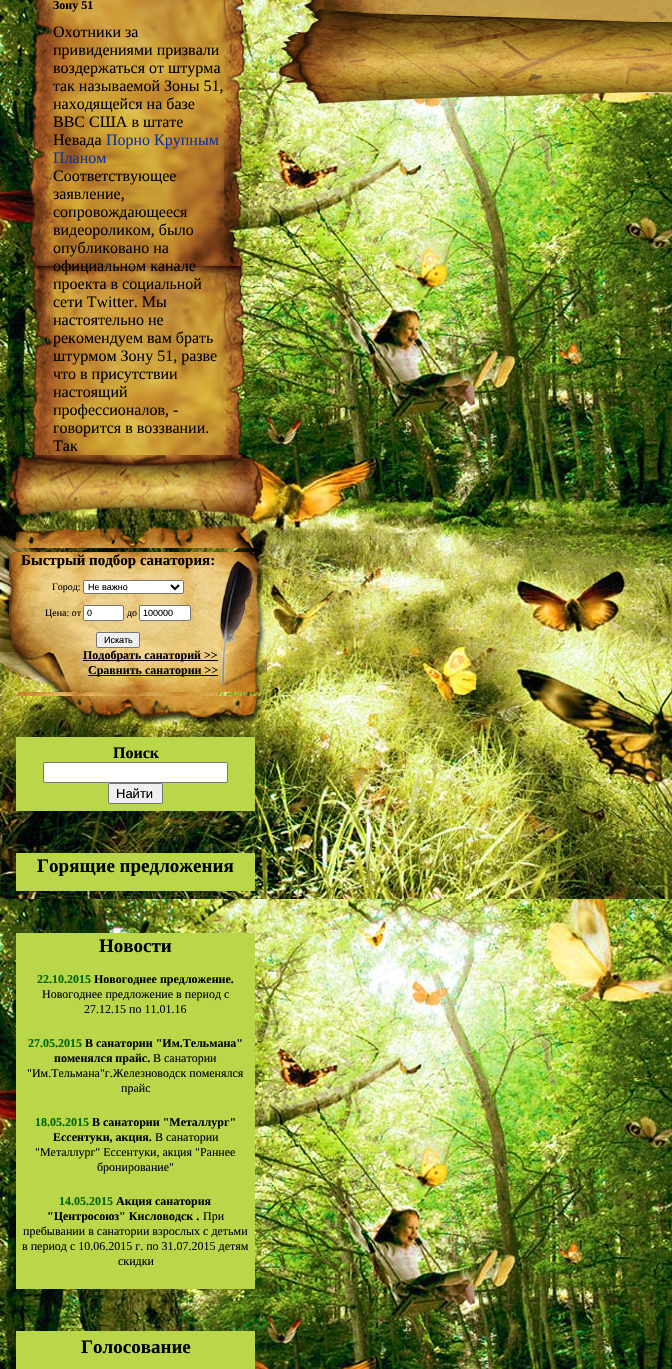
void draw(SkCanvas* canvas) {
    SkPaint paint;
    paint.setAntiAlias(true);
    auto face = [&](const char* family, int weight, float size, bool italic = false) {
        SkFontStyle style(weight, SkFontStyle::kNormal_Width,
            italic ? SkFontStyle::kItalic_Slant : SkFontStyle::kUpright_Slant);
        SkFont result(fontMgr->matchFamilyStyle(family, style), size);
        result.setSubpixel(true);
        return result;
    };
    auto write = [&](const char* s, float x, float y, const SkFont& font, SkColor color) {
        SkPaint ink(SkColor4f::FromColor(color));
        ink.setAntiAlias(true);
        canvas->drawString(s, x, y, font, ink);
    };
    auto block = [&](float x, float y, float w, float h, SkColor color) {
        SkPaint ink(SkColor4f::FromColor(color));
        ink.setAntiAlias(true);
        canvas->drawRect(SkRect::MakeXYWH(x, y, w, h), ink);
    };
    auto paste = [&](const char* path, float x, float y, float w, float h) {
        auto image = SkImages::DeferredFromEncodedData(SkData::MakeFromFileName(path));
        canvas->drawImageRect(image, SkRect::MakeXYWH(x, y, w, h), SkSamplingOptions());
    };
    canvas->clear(SK_ColorWHITE);
    paste("pic1.png", 0, 0, 672, 1369);
    paste("pic2.png", 21, 0, 32, 455);
    paste("pic3.png", 53, 0, 171, 455);
    auto kFont1 = face("Liberation Serif", 700, 12);
    write("Зону 51", 53, 9, kFont1, SK_ColorBLACK);
    auto kFont2 = face("Liberation Serif", 400, 16);
    write("Охотники за", 53, 37, kFont2, SK_ColorBLACK);
    write("привидениями призвали", 53, 55, kFont2, SK_ColorBLACK);
    write("воздержаться от штурма", 53, 73, kFont2, SK_ColorBLACK);
    write("так называемой Зоны 51,", 53, 91, kFont2, SK_ColorBLACK);
    write("находящейся на базе", 53, 109, kFont2, SK_ColorBLACK);
    write("ВВС США в штате", 53, 127, kFont2, SK_ColorBLACK);
    write("Невада", 53, 145, kFont2, SK_ColorBLACK);
    write("Порно Крупным", 106, 145, kFont2, SkColorSetRGB(16, 51, 153));
    write("Планом", 53, 163, kFont2, SkColorSetRGB(16, 51, 153));
    write("Соответствующее", 53, 181, kFont2, SK_ColorBLACK);
    write("заявление,", 53, 199, kFont2, SK_ColorBLACK);
    write("сопровождающееся", 53, 217, kFont2, SK_ColorBLACK);
    write("видеороликом, было", 53, 235, kFont2, SK_ColorBLACK);
    write("опубликовано на", 53, 253, kFont2, SK_ColorBLACK);
    write("официальном канале", 53, 271, kFont2, SK_ColorBLACK);
    write("проекта в социальной", 53, 289, kFont2, SK_ColorBLACK);
    write("сети Twitter. Мы", 53, 307, kFont2, SK_ColorBLACK);
    write("настоятельно не", 53, 325, kFont2, SK_ColorBLACK);
    write("рекомендуем вам брать", 53, 343, kFont2, SK_ColorBLACK);
    write("штурмом Зону 51, разве", 53, 361, kFont2, SK_ColorBLACK);
    write("что в присутствии", 53, 379, kFont2, SK_ColorBLACK);
    write("настоящий", 53, 397, kFont2, SK_ColorBLACK);
    write("профессионалов, -", 53, 415, kFont2, SK_ColorBLACK);
    write("говорится в воззвании.", 53, 433, kFont2, SK_ColorBLACK);
    write("Так", 53, 451, kFont2, SK_ColorBLACK);
    paste("pic4.png", 224, 0, 30, 455);
    paste("pic5.png", 8, 455, 256, 61);
    paste("pic6.png", 12, 522, 243, 26);
    paste("pic7.png", 7, 552, 11, 110);
    paste("pic8.png", 18, 552, 200, 144);
    auto kFont3 = face("Liberation Serif", 700, 15);
    write("Быстрый подбор санатория:", 21, 565, kFont3, SK_ColorBLACK);
    auto kFont4 = face("Liberation Serif", 400, 10);
    write("Город:", 52, 590, kFont4, SK_ColorBLACK);
    paint.setColor(SK_ColorWHITE);
    canvas->drawRoundRect(SkRect::MakeXYWH(83.5f, 580.5f, 100, 13), 1.5f, 1.5f, paint);
    paint.setStyle(SkPaint::kStroke_Style);
    paint.setStrokeWidth(1);
    paint.setColor(SkColorSetRGB(118, 118, 118));
    canvas->drawRoundRect(SkRect::MakeXYWH(83.5f, 580.5f, 100, 13), 1.5f, 1.5f, paint);
    paint.setStrokeWidth(2);
    paint.setColor(SK_ColorBLACK);
    canvas->drawPath(SkPathBuilder().moveTo(171, 585).lineTo(175, 589).lineTo(179, 585).detach(), paint);
    auto kFont5 = face("Liberation Sans", 400, 9);
    write("Не важно", 88, 590, kFont5, SK_ColorBLACK);
    write("Цена: от", 45, 616, kFont4, SK_ColorBLACK);
    paint.setStyle(SkPaint::kFill_Style);
    paint.setColor(SK_ColorWHITE);
    canvas->drawRoundRect(SkRect::MakeXYWH(83.5f, 605.5f, 40, 15), 1.5f, 1.5f, paint);
    paint.setStyle(SkPaint::kStroke_Style);
    paint.setStrokeWidth(1);
    paint.setColor(SkColorSetRGB(118, 118, 118));
    canvas->drawRoundRect(SkRect::MakeXYWH(83.5f, 605.5f, 40, 15), 1.5f, 1.5f, paint);
    write("0", 87, 616, kFont5, SK_ColorBLACK);
    write("до", 127, 616, kFont4, SK_ColorBLACK);
    paint.setStyle(SkPaint::kFill_Style);
    paint.setColor(SK_ColorWHITE);
    canvas->drawRoundRect(SkRect::MakeXYWH(139.5f, 605.5f, 51, 15), 1.5f, 1.5f, paint);
    paint.setStyle(SkPaint::kStroke_Style);
    paint.setColor(SkColorSetRGB(118, 118, 118));
    canvas->drawRoundRect(SkRect::MakeXYWH(139.5f, 605.5f, 51, 15), 1.5f, 1.5f, paint);
    write("100000", 143, 616, kFont5, SK_ColorBLACK);
    paint.setStyle(SkPaint::kFill_Style);
    paint.setColor(SkColorSetRGB(239, 239, 239));
    canvas->drawRoundRect(SkRect::MakeXYWH(96.5f, 632.5f, 43, 15), 1.5f, 1.5f, paint);
    paint.setStyle(SkPaint::kStroke_Style);
    paint.setColor(SkColorSetRGB(118, 118, 118));
    canvas->drawRoundRect(SkRect::MakeXYWH(96.5f, 632.5f, 43, 15), 1.5f, 1.5f, paint);
    write("Искать", 104, 643, kFont5, SK_ColorBLACK);
    block(83, 660, 135, 1, SK_ColorBLACK);
    write("Подобрать санаторий >>", 83, 659, kFont1, SK_ColorBLACK);
    block(88, 675, 130, 1, SK_ColorBLACK);
    write("Сравнить санатории >>", 88, 674, kFont1, SK_ColorBLACK);
    paste("pic9.png", 218, 552, 49, 140);
    paste("pic10.png", 54, 696, 211, 30);
    block(16, 737, 239, 74, SkColorSetRGB(185, 215, 73));
    auto kFont6 = face("Liberation Serif", 700, 16);
    write("Поиск", 113, 758, kFont6, SK_ColorBLACK);
    paint.setStyle(SkPaint::kFill_Style);
    paint.setColor(SK_ColorWHITE);
    canvas->drawRoundRect(SkRect::MakeXYWH(43.5f, 762.5f, 184, 20), 1.5f, 1.5f, paint);
    paint.setStyle(SkPaint::kStroke_Style);
    paint.setColor(SkColorSetRGB(118, 118, 118));
    canvas->drawRoundRect(SkRect::MakeXYWH(43.5f, 762.5f, 184, 20), 1.5f, 1.5f, paint);
    paint.setStyle(SkPaint::kFill_Style);
    paint.setColor(SkColorSetRGB(239, 239, 239));
    canvas->drawRoundRect(SkRect::MakeXYWH(108.5f, 783.5f, 54, 20), 1.5f, 1.5f, paint);
    paint.setStyle(SkPaint::kStroke_Style);
    paint.setColor(SkColorSetRGB(118, 118, 118));
    canvas->drawRoundRect(SkRect::MakeXYWH(108.5f, 783.5f, 54, 20), 1.5f, 1.5f, paint);
    auto kFont7 = face("Liberation Sans", 400, 13);
    write("Найти", 116, 798, kFont7, SK_ColorBLACK);
    block(16, 853, 239, 38, SkColorSetRGB(185, 215, 73));
    auto kFont8 = face("Liberation Serif", 700, 19);
    write("Горящие предложения", 37, 872, kFont8, SK_ColorBLACK);
    block(16, 933, 239, 356, SkColorSetRGB(185, 215, 73));
    write("Новости", 99, 952, kFont8, SK_ColorBLACK);
    write("22.10.2015", 37, 983, kFont1, SkColorSetRGB(0, 102, 0));
    write("Новогоднее предложение.", 94, 983, kFont1, SK_ColorBLACK);
    auto kFont9 = face("Liberation Serif", 400, 12);
    write("Новогоднее предложение в период с", 42, 998, kFont9, SK_ColorBLACK);
    write("27.12.15 по 11.01.16", 84, 1013, kFont9, SK_ColorBLACK);
    write("27.05.2015", 28, 1047, kFont1, SkColorSetRGB(0, 102, 0));
    write("В санатории \"Им.Тельмана\"", 85, 1047, kFont1, SK_ColorBLACK);
    write("поменялся прайс.", 54, 1062, kFont1, SK_ColorBLACK);
    write("В санатории", 153, 1062, kFont9, SK_ColorBLACK);
    write("\"Им.Тельмана\"г.Железноводск поменялся", 27, 1077, kFont9, SK_ColorBLACK);
    write("прайс", 121, 1092, kFont9, SK_ColorBLACK);
    write("18.05.2015", 35, 1126, kFont1, SkColorSetRGB(0, 102, 0));
    write("В санатории \"Металлург\"", 92, 1126, kFont1, SK_ColorBLACK);
    write("Ессентуки, акция.", 53, 1141, kFont1, SK_ColorBLACK);
    write("В санатории", 155, 1141, kFont9, SK_ColorBLACK);
    write("\"Металлург\" Ессентуки, акция \"Раннее", 35, 1156, kFont9, SK_ColorBLACK);
    write("бронирование\"", 97, 1171, kFont9, SK_ColorBLACK);
    write("14.05.2015", 59, 1205, kFont1, SkColorSetRGB(0, 102, 0));
    write("Акция санатория", 116, 1205, kFont1, SK_ColorBLACK);
    write("\"Центросоюз\" Кисловодск .", 47, 1220, kFont1, SK_ColorBLACK);
    write("При", 203, 1220, kFont9, SK_ColorBLACK);
    write("пребывании в санатории взрослых с детьми", 23, 1235, kFont9, SK_ColorBLACK);
    write("в период с 10.06.2015 г. по 31.07.2015 детям", 22, 1250, kFont9, SK_ColorBLACK);
    write("скидки", 118, 1265, kFont9, SK_ColorBLACK);
    block(16, 1331, 239, 38, SkColorSetRGB(185, 215, 73));
    write("Голосование", 81, 1353, kFont8, SK_ColorBLACK);
    paste("pic11.png", 303, 0, 80, 9);
    paste("pic12.png", 383, 0, 289, 9);
    paste("pic13.png", 279, 9, 393, 95);
}
